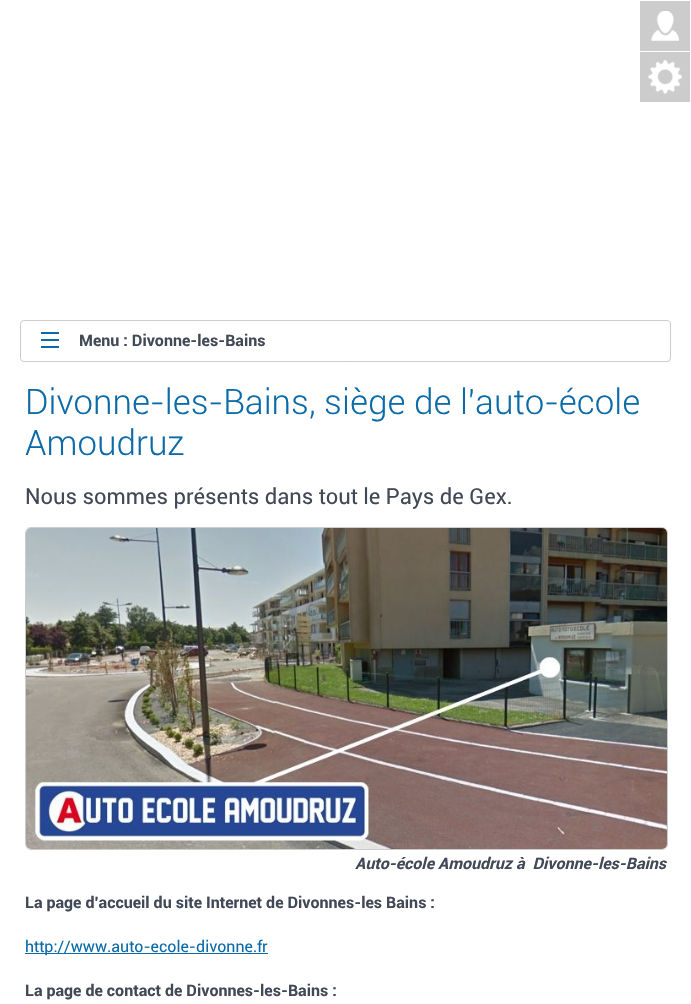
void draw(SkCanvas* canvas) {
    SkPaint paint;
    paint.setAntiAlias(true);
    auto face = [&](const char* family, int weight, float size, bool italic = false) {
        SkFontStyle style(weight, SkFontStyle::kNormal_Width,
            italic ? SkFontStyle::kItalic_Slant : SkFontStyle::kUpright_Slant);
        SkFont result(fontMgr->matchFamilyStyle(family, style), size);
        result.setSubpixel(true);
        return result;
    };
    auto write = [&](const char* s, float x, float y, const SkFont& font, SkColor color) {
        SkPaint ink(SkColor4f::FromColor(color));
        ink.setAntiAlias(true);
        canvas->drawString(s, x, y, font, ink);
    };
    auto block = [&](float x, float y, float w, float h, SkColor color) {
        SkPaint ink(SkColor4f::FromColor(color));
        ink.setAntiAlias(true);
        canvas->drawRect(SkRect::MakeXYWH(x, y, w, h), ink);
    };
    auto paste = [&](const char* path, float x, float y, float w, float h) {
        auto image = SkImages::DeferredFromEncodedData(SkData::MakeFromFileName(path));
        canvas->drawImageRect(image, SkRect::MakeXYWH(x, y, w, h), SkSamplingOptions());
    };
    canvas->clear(SK_ColorWHITE);
    block(640, 1, 50, 50, SkColorSetRGB(204, 204, 204));
    paste("pic1.png", 651, 11, 28, 30);
    block(640, 52, 50, 50, SkColorSetRGB(204, 204, 204));
    paste("pic2.png", 648, 60, 34, 34);
    paint.setStyle(SkPaint::kStroke_Style);
    paint.setStrokeWidth(1);
    paint.setColor(SkColorSetRGB(204, 204, 204));
    canvas->drawRoundRect(SkRect::MakeXYWH(20.5f, 320.5f, 650, 41), 3.5f, 3.5f, paint);
    paste("pic3.png", 41, 332, 18, 16);
    auto kFont1 = face("Roboto", 700, 16);
    write("Menu : Divonne-les-Bains", 79, 346, kFont1, SkColorSetRGB(65, 72, 86));
    auto kFont2 = face("Roboto", 300, 35);
    write("Divonne-les-Bains, siège de l'auto-école", 25, 414, kFont2, SkColorSetRGB(11, 107, 168));
    write("Amoudruz", 25, 455, kFont2, SkColorSetRGB(11, 107, 168));
    auto kFont3 = face("Roboto", 400, 22);
    write("Nous sommes présents dans tout le Pays de Gex.", 25, 504, kFont3, SkColorSetRGB(65, 72, 86));
    canvas->drawRoundRect(SkRect::MakeXYWH(25.5f, 527.5f, 642, 322), 5.5f, 5.5f, paint);
    paste("pic4.png", 26, 528, 641, 321);
    auto kFont4 = face("Roboto", 700, 16, true);
    write("Auto-école Amoudruz à  Divonne-les-Bains", 355, 869, kFont4, SkColorSetRGB(65, 72, 86));
    write("La page d'accueil du site Internet de Divonnes-les Bains :", 25, 908, kFont1, SkColorSetRGB(65, 72, 86));
    block(25, 953, 243, 1, SkColorSetRGB(11, 107, 171));
    auto kFont5 = face("Roboto", 400, 16);
    write("http://www.auto-ecole-divonne.fr", 25, 952, kFont5, SkColorSetRGB(11, 107, 168));
    write("La page de contact de Divonnes-les-Bains :", 25, 996, kFont1, SkColorSetRGB(65, 72, 86));
}
